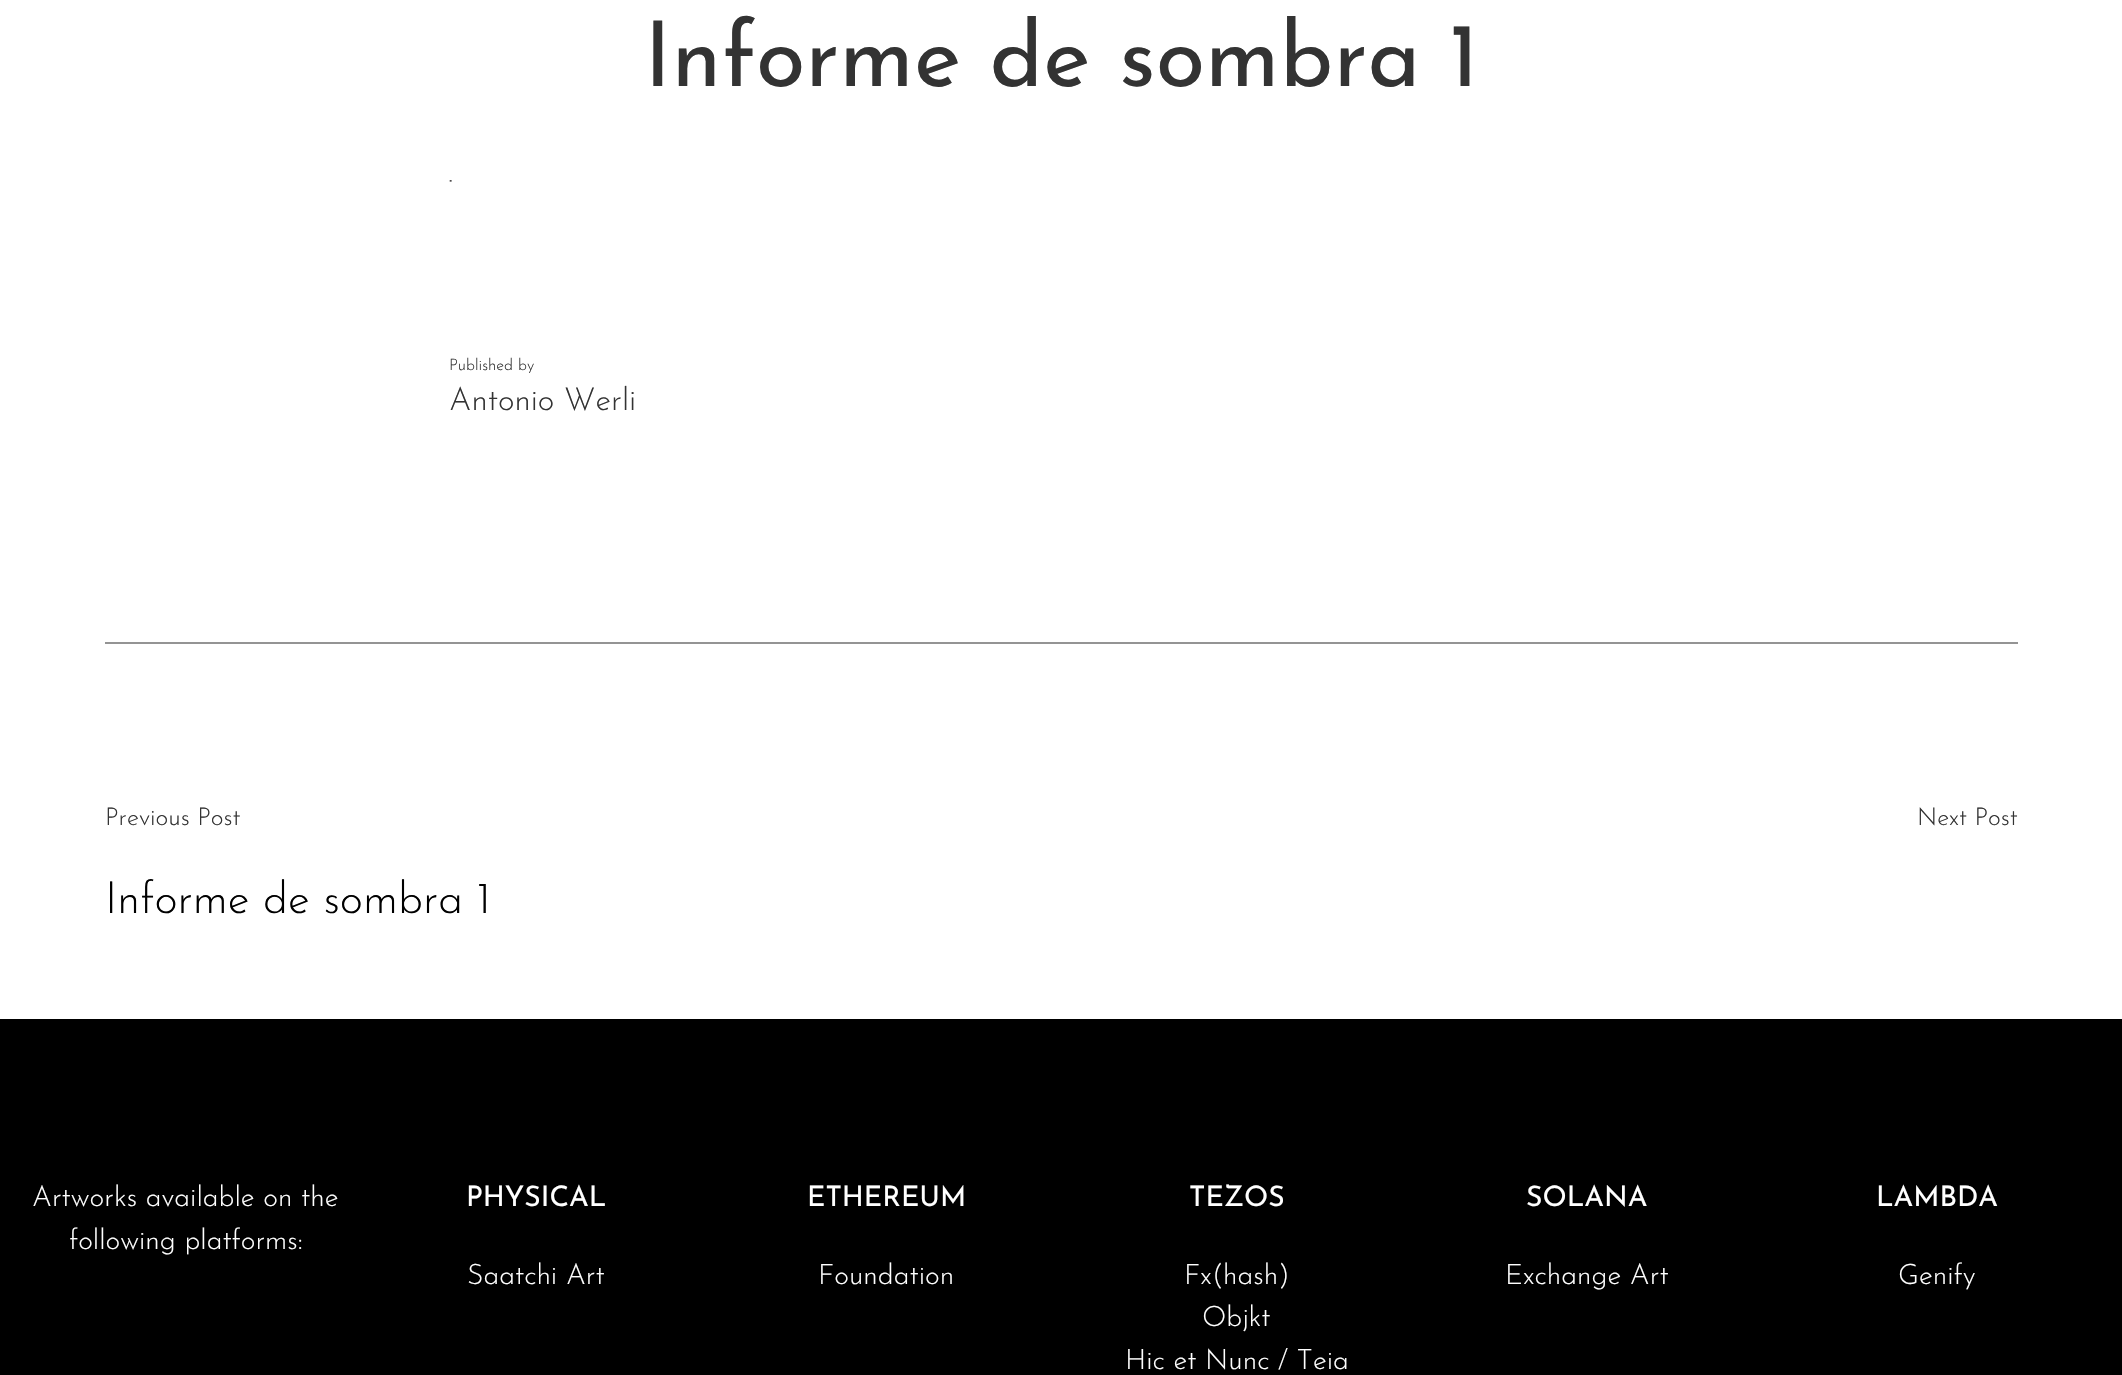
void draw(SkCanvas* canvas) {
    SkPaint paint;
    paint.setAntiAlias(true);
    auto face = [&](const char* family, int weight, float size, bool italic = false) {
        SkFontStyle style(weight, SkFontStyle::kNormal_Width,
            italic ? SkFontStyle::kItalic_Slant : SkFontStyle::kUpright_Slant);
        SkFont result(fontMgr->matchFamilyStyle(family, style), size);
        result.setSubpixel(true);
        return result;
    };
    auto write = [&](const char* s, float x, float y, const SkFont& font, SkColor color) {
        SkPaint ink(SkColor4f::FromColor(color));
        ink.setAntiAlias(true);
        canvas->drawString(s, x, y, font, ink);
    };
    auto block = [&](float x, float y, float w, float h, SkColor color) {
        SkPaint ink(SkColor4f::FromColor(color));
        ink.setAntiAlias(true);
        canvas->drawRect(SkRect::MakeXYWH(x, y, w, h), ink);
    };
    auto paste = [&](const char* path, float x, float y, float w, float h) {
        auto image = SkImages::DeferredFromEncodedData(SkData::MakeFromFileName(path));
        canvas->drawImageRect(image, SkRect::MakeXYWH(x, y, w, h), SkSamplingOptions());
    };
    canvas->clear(SK_ColorWHITE);
    auto kFont1 = face("Josefin Sans", 400, 90.5f);
    write("Informe de sombra 1", 644, 86, kFont1, SkColorSetRGB(51, 51, 51));
    paste("pic1.png", 449, 180, 3, 2);
    auto kFont2 = face("Josefin Sans", 300, 16);
    write("Published by", 449, 370, kFont2, SkColorSetRGB(51, 51, 51));
    auto kFont3 = face("Josefin Sans", 300, 31.75f);
    write("Antonio Werli", 449, 410, kFont3, SkColorSetRGB(51, 51, 51));
    block(105, 642, 1913, 2, SkColorSetRGB(148, 148, 148));
    auto kFont4 = face("Josefin Sans", 300, 24.5f);
    write("Previous Post", 105, 825, kFont4, SkColorSetRGB(51, 51, 51));
    auto kFont5 = face("Josefin Sans", 300, 44.5f);
    write("Informe de sombra 1", 105, 913, kFont5, SK_ColorBLACK);
    write("Next Post", 1917, 825, kFont4, SkColorSetRGB(51, 51, 51));
    block(0, 1019, 2122, 356, SK_ColorBLACK);
    auto kFont6 = face("Josefin Sans", 300, 28.25f);
    write("Artworks available on the", 32, 1206, kFont6, SK_ColorWHITE);
    write("following platforms:", 69, 1249, kFont6, SK_ColorWHITE);
    auto kFont7 = face("Josefin Sans", 400, 28.25f);
    write("PHYSICAL", 466, 1206, kFont7, SK_ColorWHITE);
    write("Saatchi Art", 467, 1284, kFont6, SK_ColorWHITE);
    write("ETHEREUM", 807, 1206, kFont7, SK_ColorWHITE);
    write("Foundation", 818, 1284, kFont6, SK_ColorWHITE);
    write("TEZOS", 1189, 1206, kFont7, SK_ColorWHITE);
    write("Fx(hash)", 1184, 1284, kFont6, SK_ColorWHITE);
    write("Objkt", 1202, 1326, kFont6, SK_ColorWHITE);
    write("Hic et Nunc / Teia", 1125, 1369, kFont6, SK_ColorWHITE);
    write("SOLANA", 1526, 1206, kFont7, SK_ColorWHITE);
    write("Exchange Art", 1505, 1284, kFont6, SK_ColorWHITE);
    write("LAMBDA", 1876, 1206, kFont7, SK_ColorWHITE);
    write("Genify", 1898, 1284, kFont6, SK_ColorWHITE);
}
